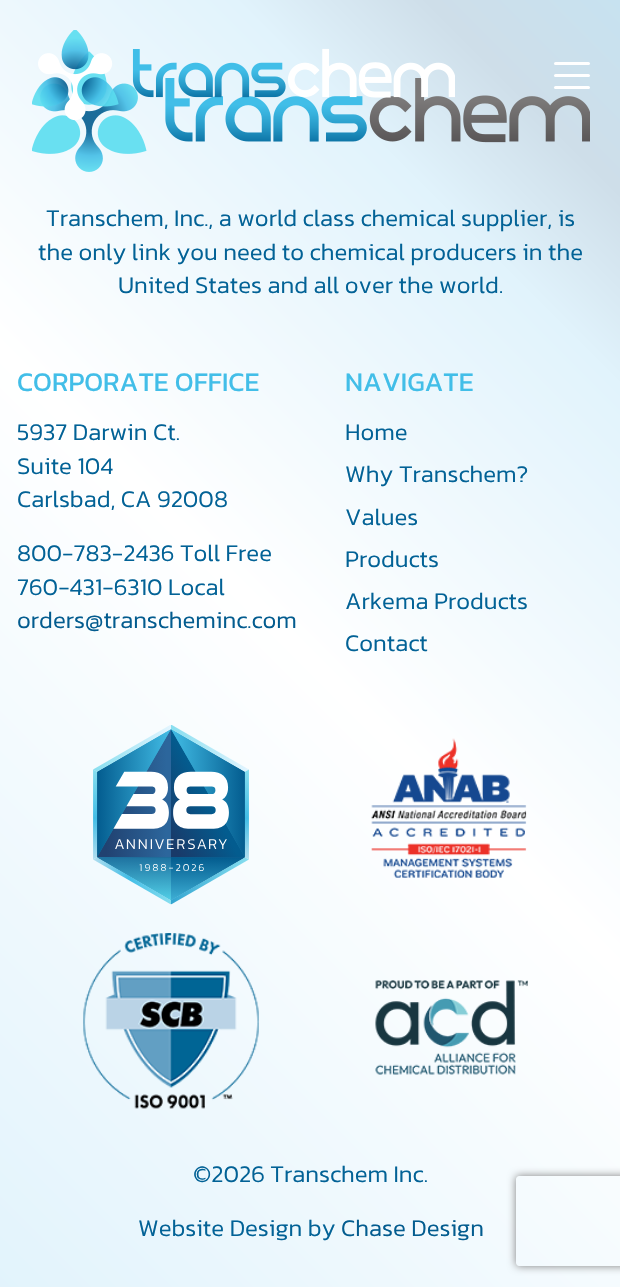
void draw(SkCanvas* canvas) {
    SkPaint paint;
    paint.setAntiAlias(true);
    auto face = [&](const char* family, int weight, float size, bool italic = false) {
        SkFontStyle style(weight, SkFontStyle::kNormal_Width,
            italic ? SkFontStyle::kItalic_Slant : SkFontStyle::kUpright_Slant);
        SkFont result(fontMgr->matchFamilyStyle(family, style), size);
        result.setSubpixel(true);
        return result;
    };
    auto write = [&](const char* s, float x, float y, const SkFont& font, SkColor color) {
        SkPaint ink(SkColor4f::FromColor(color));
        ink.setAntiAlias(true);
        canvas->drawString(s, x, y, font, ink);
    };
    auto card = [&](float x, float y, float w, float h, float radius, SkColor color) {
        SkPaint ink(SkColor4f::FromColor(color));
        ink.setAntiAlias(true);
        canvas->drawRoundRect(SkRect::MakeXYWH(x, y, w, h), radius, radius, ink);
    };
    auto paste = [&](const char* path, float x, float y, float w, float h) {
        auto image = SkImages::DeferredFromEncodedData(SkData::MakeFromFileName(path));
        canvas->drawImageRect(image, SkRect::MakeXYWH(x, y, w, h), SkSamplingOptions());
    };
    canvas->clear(SK_ColorWHITE);
    {
        const SkColor colors[] = {SkColorSetRGB(225, 243, 252), SK_ColorWHITE, SkColorSetRGB(225, 243, 252), SkColorSetRGB(206, 222, 233), SkColorSetRGB(199, 226, 240)};
        const float stops[] = {0, 0.5f, 0.8f, 0.9f, 1};
        const SkPoint ends[] = {{-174, 1142}, {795, 174}};
        paint.setShader(SkGradientShader::MakeLinear(ends, colors, stops, 5, SkTileMode::kClamp));
        paint.setAlpha(255);
    }
    canvas->drawRect(SkRect::MakeXYWH(0, 0, 620, 1287), paint);
    paste("pic2.png", 32, 51, 558, 121);
    paste("pic1.png", 32, 30, 423, 91);
    card(554, 74, 36, 3, 1.5f, SK_ColorWHITE);
    card(554, 62, 36, 3, 1.5f, SK_ColorWHITE);
    card(554, 86, 36, 3, 1.5f, SK_ColorWHITE);
    auto kFont1 = face("Kanit", 300, 24);
    write("Transchem, Inc., a world class chemical supplier, is", 46, 226, kFont1, SkColorSetRGB(2, 98, 150));
    write("the only link you need to chemical producers in the", 38, 260, kFont1, SkColorSetRGB(2, 98, 150));
    write("United States and all over the world.", 118, 293, kFont1, SkColorSetRGB(2, 98, 150));
    auto kFont2 = face("Kanit", 400, 27);
    write("CORPORATE OFFICE", 17, 391, kFont2, SkColorSetRGB(66, 190, 232));
    write("5937 Darwin Ct.", 17, 440, kFont1, SkColorSetRGB(2, 98, 150));
    write("Suite 104", 17, 474, kFont1, SkColorSetRGB(2, 98, 150));
    write("Carlsbad, CA 92008", 17, 507, kFont1, SkColorSetRGB(2, 98, 150));
    write("800-783-2436 Toll Free", 17, 561, kFont1, SkColorSetRGB(2, 98, 150));
    write("760-431-6310 Local", 17, 595, kFont1, SkColorSetRGB(2, 98, 150));
    write("orders@transcheminc.com", 17, 628, kFont1, SkColorSetRGB(3, 92, 143));
    write("NAVIGATE", 345, 391, kFont2, SkColorSetRGB(66, 190, 232));
    write("Home", 345, 440, kFont1, SkColorSetRGB(2, 98, 150));
    write("Why Transchem?", 345, 482, kFont1, SkColorSetRGB(2, 98, 150));
    write("Values", 345, 525, kFont1, SkColorSetRGB(2, 98, 150));
    write("Products", 345, 567, kFont1, SkColorSetRGB(2, 98, 150));
    write("Arkema Products", 345, 609, kFont1, SkColorSetRGB(2, 98, 150));
    write("Contact", 345, 651, kFont1, SkColorSetRGB(2, 98, 150));
    paste("pic3.png", 93, 725, 156, 180);
    paste("pic4.png", 371, 738, 156, 140);
    paste("pic5.png", 83, 933, 176, 176);
    paste("pic6.png", 375, 980, 153, 95);
    write("©2026 Transchem Inc.", 193, 1182, kFont1, SkColorSetRGB(2, 98, 150));
    write("Website Design by", 138, 1236, kFont1, SkColorSetRGB(2, 98, 150));
    write("Chase Design", 341, 1236, kFont1, SkColorSetRGB(3, 92, 143));
    canvas->save();
    canvas->clipPath(SkPathBuilder(SkPathFillType::kEvenOdd).moveTo(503, 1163).lineTo(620, 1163).lineTo(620, 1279).lineTo(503, 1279).close().moveTo(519, 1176).lineTo(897, 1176).cubicTo(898.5f, 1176, 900, 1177.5f, 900, 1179).lineTo(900, 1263).cubicTo(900, 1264.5f, 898.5f, 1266, 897, 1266).lineTo(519, 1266).cubicTo(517.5f, 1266, 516, 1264.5f, 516, 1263).lineTo(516, 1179).cubicTo(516, 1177.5f, 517.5f, 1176, 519, 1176).close().detach(), true);
    paint.setShader(nullptr);
    paint.setColor(SkColorSetRGB(128, 128, 128));
    paint.setMaskFilter(SkMaskFilter::MakeBlur(kNormal_SkBlurStyle, 4));
    canvas->drawRoundRect(SkRect::MakeXYWH(516, 1176, 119, 90), 3, 3, paint);
    paint.setMaskFilter(nullptr);
    canvas->restore();
}
